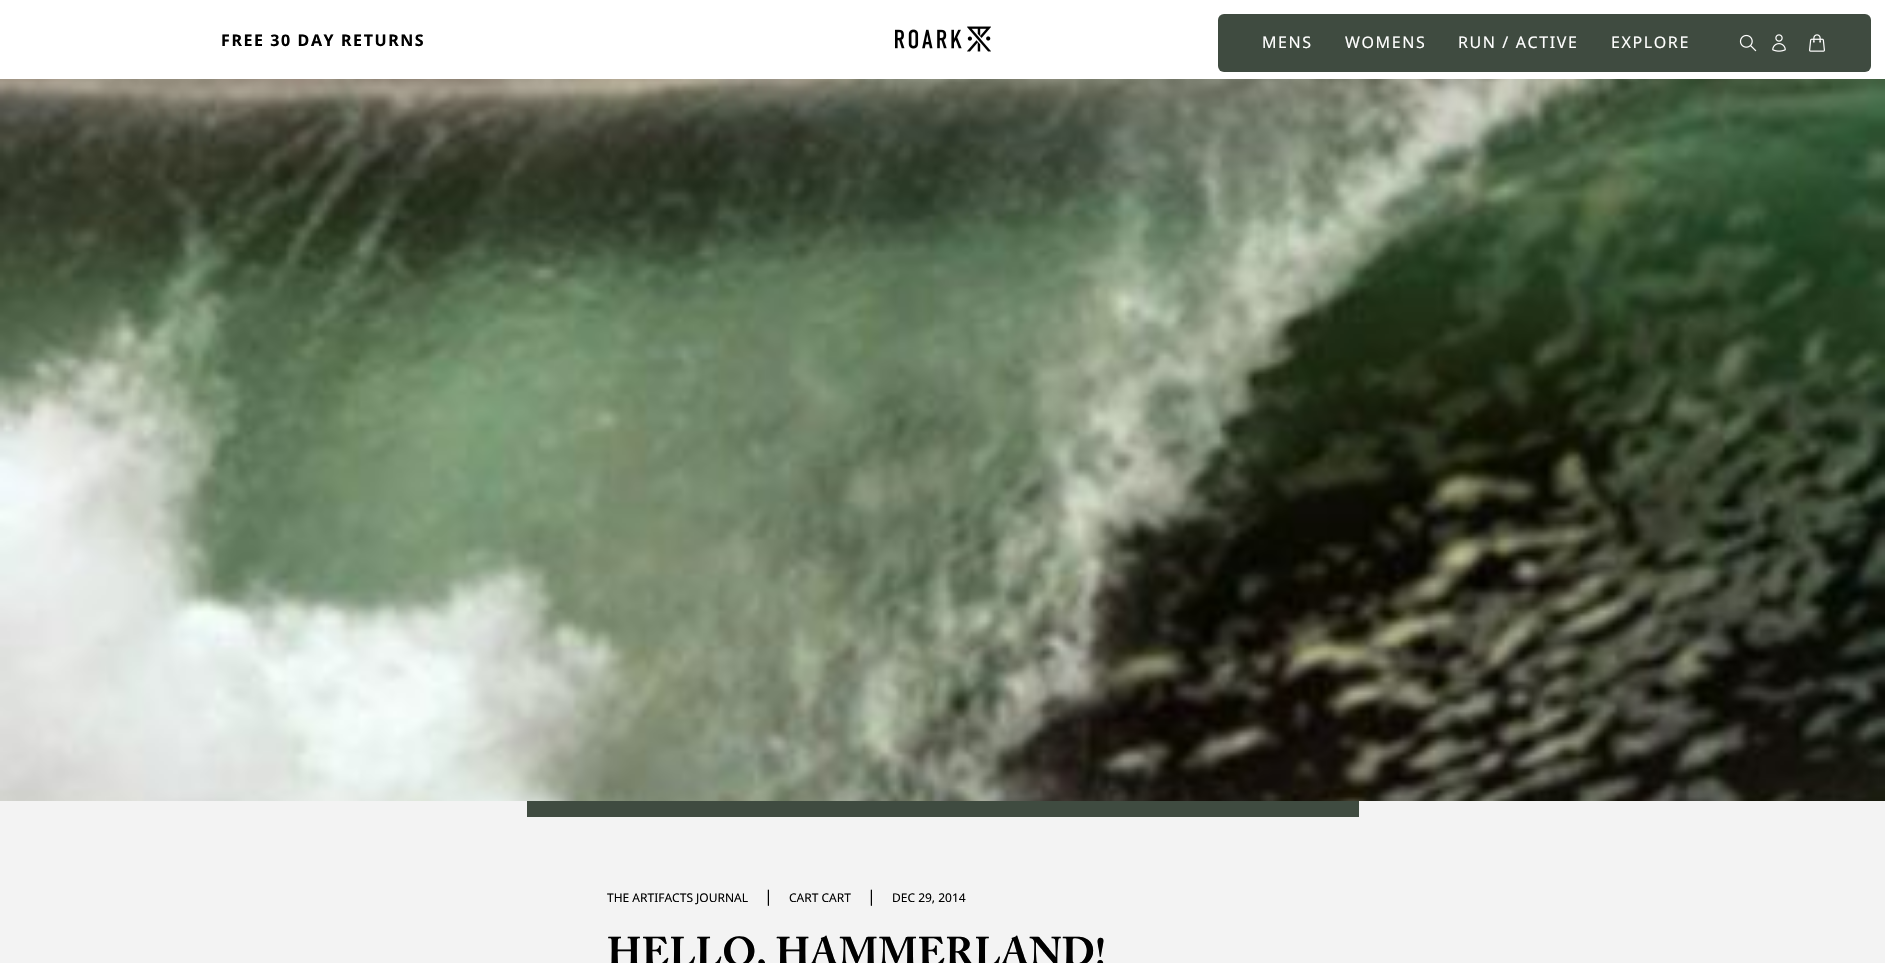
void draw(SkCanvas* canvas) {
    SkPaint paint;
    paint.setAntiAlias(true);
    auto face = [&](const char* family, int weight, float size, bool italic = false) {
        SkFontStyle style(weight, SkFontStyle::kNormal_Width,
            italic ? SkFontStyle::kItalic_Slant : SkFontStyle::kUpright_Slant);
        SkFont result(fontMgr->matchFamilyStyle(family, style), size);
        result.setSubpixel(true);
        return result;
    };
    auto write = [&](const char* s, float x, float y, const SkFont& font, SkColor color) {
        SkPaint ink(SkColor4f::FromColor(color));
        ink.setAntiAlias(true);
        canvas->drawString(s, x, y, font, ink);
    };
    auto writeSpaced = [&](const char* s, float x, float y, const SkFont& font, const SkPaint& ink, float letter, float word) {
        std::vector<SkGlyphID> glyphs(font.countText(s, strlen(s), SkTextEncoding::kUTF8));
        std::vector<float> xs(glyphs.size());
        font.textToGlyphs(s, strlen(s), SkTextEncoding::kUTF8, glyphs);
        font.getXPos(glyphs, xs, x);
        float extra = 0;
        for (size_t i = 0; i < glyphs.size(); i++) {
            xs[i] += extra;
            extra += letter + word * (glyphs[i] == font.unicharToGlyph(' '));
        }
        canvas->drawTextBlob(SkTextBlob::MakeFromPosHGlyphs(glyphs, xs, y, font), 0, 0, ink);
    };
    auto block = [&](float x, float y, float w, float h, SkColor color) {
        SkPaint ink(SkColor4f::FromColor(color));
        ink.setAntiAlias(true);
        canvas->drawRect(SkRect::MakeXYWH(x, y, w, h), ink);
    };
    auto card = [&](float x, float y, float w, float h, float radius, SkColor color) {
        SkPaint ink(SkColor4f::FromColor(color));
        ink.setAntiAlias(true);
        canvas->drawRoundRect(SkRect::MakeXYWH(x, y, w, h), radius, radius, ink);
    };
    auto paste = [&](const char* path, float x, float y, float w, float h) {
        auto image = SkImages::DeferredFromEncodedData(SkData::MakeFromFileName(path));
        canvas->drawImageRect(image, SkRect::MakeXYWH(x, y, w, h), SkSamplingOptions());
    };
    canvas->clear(SkColorSetRGB(243, 243, 243));
    block(0, 0, 1885, 79, SK_ColorWHITE);
    paste("pic1.png", 895, 26, 96, 26);
    auto kFont1 = face("Noto Sans", 700, 16);
    paint.setColor(SK_ColorBLACK);
    writeSpaced("FREE 30 DAY RETURNS", 221, 46, kFont1, paint, 1.6f, 0);
    card(1218, 14, 653, 58, 6, SkColorSetRGB(63, 75, 64));
    auto kFont2 = face("Noto Sans", 400, 16);
    paint.setColor(SK_ColorWHITE);
    writeSpaced("MENS", 1262, 48, kFont2, paint, 1.6f, 0);
    writeSpaced("WOMENS", 1345, 48, kFont2, paint, 1.6f, 0);
    writeSpaced("RUN / ACTIVE", 1458, 48, kFont2, paint, 1.6f, 0);
    writeSpaced("EXPLORE", 1611, 48, kFont2, paint, 1.6f, 0);
    paste("pic2.png", 1739, 34, 18, 18);
    paste("pic3.png", 1772, 34, 14, 18);
    paste("pic4.png", 1809, 34, 16, 18);
    paste("pic5.png", 0, 79, 1885, 722);
    block(527, 801, 832, 16, SkColorSetRGB(63, 75, 64));
    auto kFont3 = face("Noto Sans", 400, 12);
    write("THE ARTIFACTS JOURNAL", 607, 902, kFont3, SK_ColorBLACK);
    write("|", 764, 902, kFont2, SK_ColorBLACK);
    write("CART CART", 789, 902, kFont3, SK_ColorBLACK);
    write("|", 867, 902, kFont2, SK_ColorBLACK);
    write("DEC 29, 2014", 892, 902, kFont3, SK_ColorBLACK);
    auto kFont4 = face("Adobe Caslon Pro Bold", 700, 39.75f);
    write("HELLO, HAMMERLAND!", 607, 965, kFont4, SK_ColorBLACK);
}
